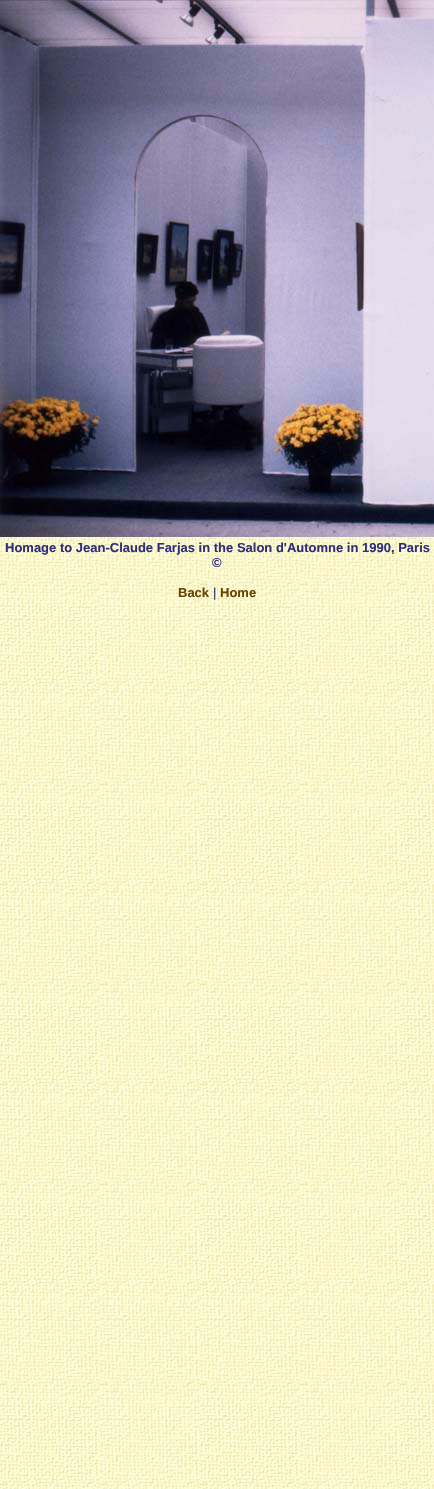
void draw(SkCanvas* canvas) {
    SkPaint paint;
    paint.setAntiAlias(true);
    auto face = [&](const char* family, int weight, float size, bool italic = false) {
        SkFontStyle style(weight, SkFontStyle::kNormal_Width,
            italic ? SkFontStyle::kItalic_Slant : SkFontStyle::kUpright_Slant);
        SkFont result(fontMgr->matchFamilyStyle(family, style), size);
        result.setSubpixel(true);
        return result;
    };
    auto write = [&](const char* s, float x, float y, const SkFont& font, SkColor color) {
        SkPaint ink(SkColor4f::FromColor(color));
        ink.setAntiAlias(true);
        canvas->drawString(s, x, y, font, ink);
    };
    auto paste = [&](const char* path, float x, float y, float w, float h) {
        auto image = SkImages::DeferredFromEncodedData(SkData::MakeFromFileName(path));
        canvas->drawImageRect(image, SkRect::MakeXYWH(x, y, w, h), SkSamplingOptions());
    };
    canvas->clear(SK_ColorWHITE);
    paste("pic1.png", 0, 537, 434, 952);
    paste("pic2.png", 0, 0, 434, 537);
    auto kFont1 = face("Liberation Sans", 700, 13);
    write("Homage to Jean-Claude Farjas in the Salon d'Automne in 1990, Paris", 5, 552, kFont1, SkColorSetRGB(46, 46, 124));
    write("©", 212, 567, kFont1, SkColorSetRGB(46, 46, 124));
    write("Back", 178, 597, kFont1, SkColorSetRGB(104, 67, 1));
    auto kFont2 = face("Liberation Sans", 400, 13);
    write("|", 213, 597, kFont2, SkColorSetRGB(46, 46, 124));
    write("Home", 220, 597, kFont1, SkColorSetRGB(104, 67, 1));
}
